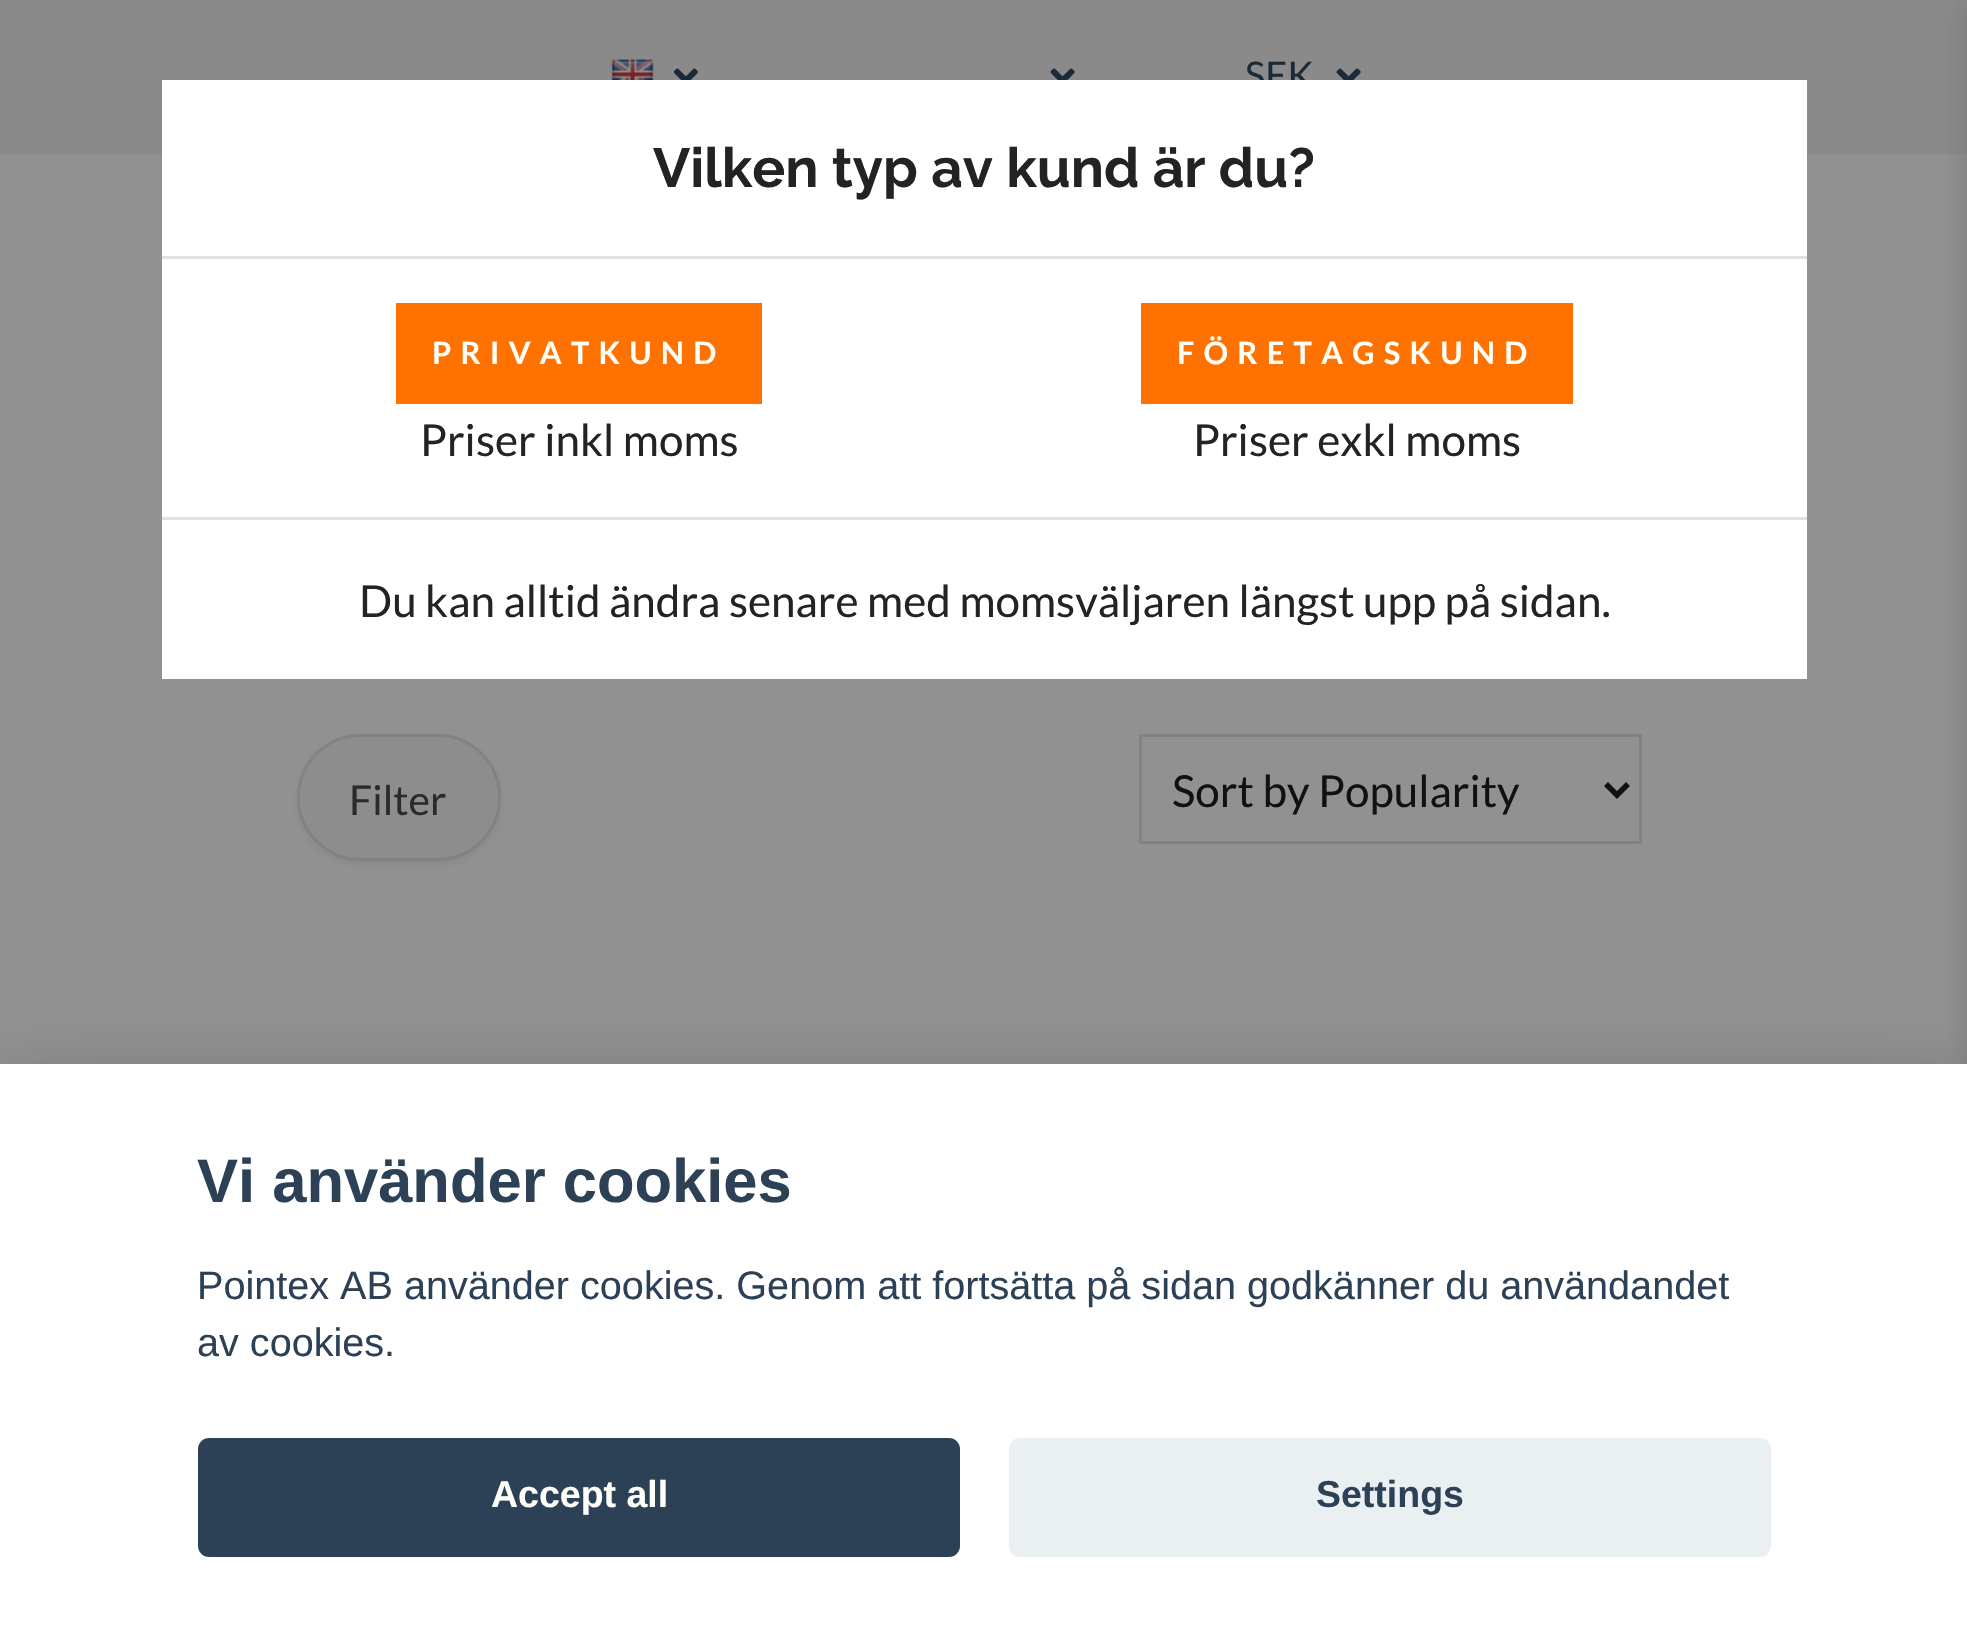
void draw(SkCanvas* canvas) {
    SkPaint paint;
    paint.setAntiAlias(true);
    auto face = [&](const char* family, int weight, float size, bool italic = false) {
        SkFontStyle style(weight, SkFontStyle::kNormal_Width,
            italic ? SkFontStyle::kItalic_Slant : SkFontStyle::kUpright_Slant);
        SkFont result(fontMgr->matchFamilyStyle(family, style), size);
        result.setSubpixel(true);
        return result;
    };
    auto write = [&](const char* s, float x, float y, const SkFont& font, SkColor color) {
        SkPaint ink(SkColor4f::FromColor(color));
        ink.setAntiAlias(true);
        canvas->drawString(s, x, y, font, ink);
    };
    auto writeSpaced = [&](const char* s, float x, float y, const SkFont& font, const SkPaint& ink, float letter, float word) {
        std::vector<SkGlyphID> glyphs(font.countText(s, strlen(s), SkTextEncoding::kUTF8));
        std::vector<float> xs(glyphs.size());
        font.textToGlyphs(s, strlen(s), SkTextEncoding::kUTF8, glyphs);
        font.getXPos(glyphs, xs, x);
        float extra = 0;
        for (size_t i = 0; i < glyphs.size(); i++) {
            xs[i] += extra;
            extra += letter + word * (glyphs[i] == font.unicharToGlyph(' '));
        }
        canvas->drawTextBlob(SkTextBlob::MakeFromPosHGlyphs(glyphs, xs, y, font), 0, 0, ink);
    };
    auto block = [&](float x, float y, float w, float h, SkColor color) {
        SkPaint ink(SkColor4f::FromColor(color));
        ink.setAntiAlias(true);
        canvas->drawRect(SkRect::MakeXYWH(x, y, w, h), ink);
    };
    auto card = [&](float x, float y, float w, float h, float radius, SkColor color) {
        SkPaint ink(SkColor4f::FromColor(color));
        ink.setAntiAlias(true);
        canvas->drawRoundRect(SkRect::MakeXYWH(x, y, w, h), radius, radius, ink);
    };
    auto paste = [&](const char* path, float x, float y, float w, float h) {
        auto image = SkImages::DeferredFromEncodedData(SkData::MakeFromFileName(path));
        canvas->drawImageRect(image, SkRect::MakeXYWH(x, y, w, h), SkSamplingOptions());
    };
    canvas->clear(SkColorSetRGB(145, 145, 145));
    block(0, 0, 1967, 154, SkColorSetRGB(138, 138, 138));
    paste("pic1.png", 610, 59, 45, 21);
    paste("pic2.png", 673, 68, 25, 12);
    paste("pic3.png", 1050, 68, 25, 12);
    auto kFont1 = face("Lato", 400, 38);
    write("SEK", 1245, 89, kFont1, SkColorSetRGB(27, 42, 56));
    paste("pic3.png", 1336, 68, 25, 12);
    paint.setColor(SkColorSetARGB(38, 17, 17, 17));
    paint.setMaskFilter(SkMaskFilter::MakeBlur(kNormal_SkBlurStyle, 14));
    canvas->drawRect(SkRect::MakeXYWH(1964, 0, 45, 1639), paint);
    paint.setMaskFilter(nullptr);
    block(162, 80, 1645, 599, SK_ColorWHITE);
    block(162, 256, 1645, 3, SkColorSetRGB(222, 226, 230));
    auto kFont2 = face("Raleway", 700, 55);
    write("Vilken typ av kund är du?", 653, 187, kFont2, SkColorSetRGB(35, 35, 35));
    block(396, 303, 366, 101, SkColorSetRGB(255, 114, 0));
    auto kFont3 = face("Lato", 700, 30.75f);
    paint.setColor(SkColorSetRGB(255, 255, 250));
    writeSpaced("PRIVATKUND", 432, 364, kFont3, paint, 9.25f, 0);
    auto kFont4 = face("Lato", 400, 44);
    write("Priser inkl moms", 420, 456, kFont4, SkColorSetRGB(35, 35, 35));
    block(1141, 303, 432, 101, SkColorSetRGB(255, 114, 0));
    writeSpaced("FÖRETAGSKUND", 1177, 364, kFont3, paint, 9.25f, 0);
    write("Priser exkl moms", 1193, 456, kFont4, SkColorSetRGB(35, 35, 35));
    block(162, 517, 1645, 3, SkColorSetRGB(222, 226, 230));
    write("Du kan alltid ändra senare med momsväljaren längst upp på sidan.", 359, 617, kFont4, SkColorSetRGB(35, 35, 35));
    paint.setColor(SkColorSetARGB(20, 17, 17, 17));
    paint.setMaskFilter(SkMaskFilter::MakeBlur(kNormal_SkBlurStyle, 4));
    canvas->drawRoundRect(SkRect::MakeXYWH(297, 737, 204, 127), 63.5f, 63.5f, paint);
    paint.setMaskFilter(nullptr);
    paint.setColor(SkColorSetRGB(141, 141, 141));
    canvas->drawRoundRect(SkRect::MakeXYWH(298.5f, 735.5f, 201, 124), 62, 62, paint);
    paint.setStyle(SkPaint::kStroke_Style);
    paint.setStrokeWidth(3);
    paint.setColor(SkColorSetRGB(130, 130, 130));
    canvas->drawRoundRect(SkRect::MakeXYWH(298.5f, 735.5f, 201, 124), 62, 62, paint);
    auto kFont5 = face("Lato", 400, 41);
    write("Filter", 349, 815, kFont5, SkColorSetRGB(43, 43, 43));
    paint.setColor(SkColorSetRGB(128, 130, 132));
    canvas->drawRect(SkRect::MakeXYWH(1140.5f, 735.5f, 500, 107), paint);
    paint.setStrokeWidth(5.5f);
    paint.setColor(SkColorSetRGB(17, 17, 17));
    canvas->drawPath(SkPathBuilder().moveTo(1606, 784).lineTo(1617, 795).lineTo(1628, 784).detach(), paint);
    write("Sort by Popularity", 1172, 807, kFont4, SkColorSetRGB(17, 17, 17));
    paint.setStyle(SkPaint::kFill_Style);
    paint.setColor(SkColorSetARGB(71, 2, 2, 3));
    paint.setMaskFilter(SkMaskFilter::MakeBlur(kNormal_SkBlurStyle, 41));
    canvas->drawRect(SkRect::MakeXYWH(0, 1092, 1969, 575), paint);
    paint.setMaskFilter(nullptr);
    block(0, 1064, 1967, 574, SK_ColorWHITE);
    auto kFont6 = face("Liberation Sans", 700, 61.5f);
    write("Vi använder cookies", 197, 1202, kFont6, SkColorSetRGB(45, 65, 86));
    auto kFont7 = face("Liberation Sans", 400, 39.6f);
    write("Pointex AB använder cookies. Genom att fortsätta på sidan godkänner du användandet", 197, 1299, kFont7, SkColorSetRGB(45, 65, 86));
    write("av cookies.", 197, 1356, kFont7, SkColorSetRGB(45, 65, 86));
    card(198, 1438, 762, 119, 11, SkColorSetRGB(45, 65, 86));
    auto kFont8 = face("Liberation Sans", 700, 37.5f);
    write("Accept all", 491, 1507, kFont8, SkColorSetRGB(255, 255, 250));
    card(1009, 1438, 762, 119, 11, SkColorSetRGB(234, 239, 242));
    write("Settings", 1316, 1507, kFont8, SkColorSetRGB(45, 65, 86));
}
